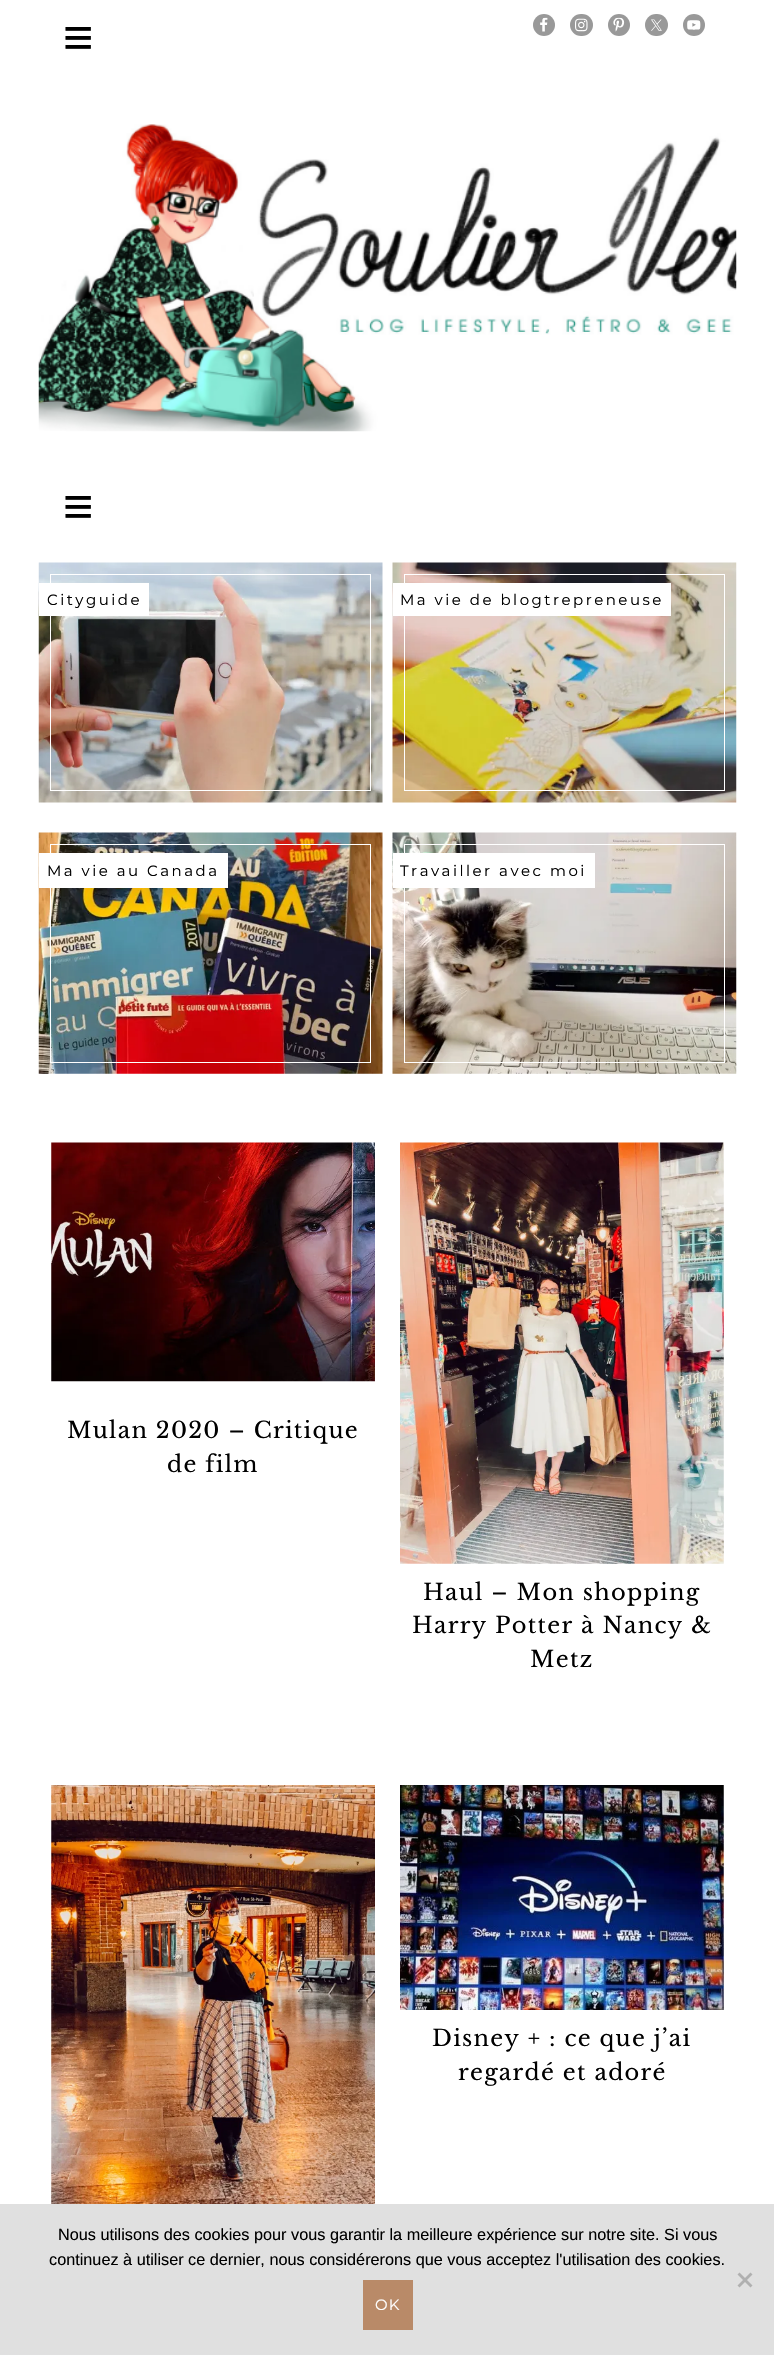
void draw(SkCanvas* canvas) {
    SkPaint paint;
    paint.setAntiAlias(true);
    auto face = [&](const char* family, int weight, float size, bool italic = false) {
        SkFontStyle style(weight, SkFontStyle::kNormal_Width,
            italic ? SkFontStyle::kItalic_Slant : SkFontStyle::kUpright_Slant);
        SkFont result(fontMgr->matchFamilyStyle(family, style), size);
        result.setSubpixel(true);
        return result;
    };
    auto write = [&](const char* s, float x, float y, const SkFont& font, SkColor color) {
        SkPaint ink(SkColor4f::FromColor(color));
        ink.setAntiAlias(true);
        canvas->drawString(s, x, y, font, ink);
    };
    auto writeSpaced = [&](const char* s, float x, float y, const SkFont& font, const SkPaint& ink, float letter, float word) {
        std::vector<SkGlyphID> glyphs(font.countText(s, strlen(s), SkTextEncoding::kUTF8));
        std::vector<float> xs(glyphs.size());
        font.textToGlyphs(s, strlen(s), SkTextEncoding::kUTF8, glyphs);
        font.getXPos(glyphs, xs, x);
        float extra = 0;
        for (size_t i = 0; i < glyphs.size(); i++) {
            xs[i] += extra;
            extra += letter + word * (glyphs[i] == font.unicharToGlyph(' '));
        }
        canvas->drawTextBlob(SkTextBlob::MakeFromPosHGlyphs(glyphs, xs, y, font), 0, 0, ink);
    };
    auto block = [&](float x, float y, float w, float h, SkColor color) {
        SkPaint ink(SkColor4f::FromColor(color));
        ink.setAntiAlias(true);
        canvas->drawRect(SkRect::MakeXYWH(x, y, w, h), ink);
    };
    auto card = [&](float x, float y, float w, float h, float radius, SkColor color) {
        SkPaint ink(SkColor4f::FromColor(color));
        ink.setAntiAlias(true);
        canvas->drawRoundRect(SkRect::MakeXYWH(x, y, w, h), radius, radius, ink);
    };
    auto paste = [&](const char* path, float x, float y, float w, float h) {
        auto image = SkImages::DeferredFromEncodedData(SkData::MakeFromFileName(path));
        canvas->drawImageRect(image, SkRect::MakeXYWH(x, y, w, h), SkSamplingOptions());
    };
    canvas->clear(SK_ColorWHITE);
    auto kFont1 = face("Liberation Sans", 400, 52);
    paint.setColor(SK_ColorBLACK);
    writeSpaced("≡", 63, 55, kFont1, paint, 1.25f, 0);
    paint.setColor(SkColorSetRGB(153, 153, 153));
    canvas->drawCircle(544, 25, 11, paint);
    paste("pic1.png", 540, 17, 8, 15);
    card(570, 14, 23, 22, 11, SkColorSetRGB(153, 153, 153));
    paste("pic2.png", 575, 18, 13, 14);
    canvas->drawCircle(619, 25, 11, paint);
    paste("pic3.png", 613, 17, 12, 15);
    card(645, 14, 23, 22, 11, SkColorSetRGB(153, 153, 153));
    paste("pic4.png", 651, 19, 11, 12);
    canvas->drawCircle(694, 25, 11, paint);
    paste("pic5.png", 687, 20, 14, 10);
    paste("pic6.png", 38, 124, 699, 308);
    paint.setColor(SK_ColorBLACK);
    writeSpaced("≡", 63, 524, kFont1, paint, 1.25f, 0);
    paste("pic7.png", 38, 562, 345, 241);
    paint.setStyle(SkPaint::kStroke_Style);
    paint.setStrokeWidth(1);
    paint.setColor(SK_ColorWHITE);
    canvas->drawRect(SkRect::MakeXYWH(50.5f, 574.5f, 320, 216), paint);
    block(39, 583, 110, 33, SK_ColorWHITE);
    auto kFont2 = face("Montserrat", 400, 15);
    paint.setStyle(SkPaint::kFill_Style);
    paint.setColor(SK_ColorBLACK);
    writeSpaced("Cityguide", 47, 605, kFont2, paint, 2.5f, 0);
    paste("pic8.png", 392, 562, 345, 241);
    paint.setStyle(SkPaint::kStroke_Style);
    paint.setColor(SK_ColorWHITE);
    canvas->drawRect(SkRect::MakeXYWH(404.5f, 574.5f, 320, 216), paint);
    block(393, 583, 278, 33, SK_ColorWHITE);
    paint.setStyle(SkPaint::kFill_Style);
    paint.setColor(SK_ColorBLACK);
    writeSpaced("Ma vie de blogtrepreneuse", 400, 605, kFont2, paint, 2.5f, 0);
    paste("pic9.png", 38, 832, 345, 242);
    paint.setStyle(SkPaint::kStroke_Style);
    paint.setColor(SK_ColorWHITE);
    canvas->drawRect(SkRect::MakeXYWH(50.5f, 844.5f, 320, 218), paint);
    block(39, 853, 189, 35, SK_ColorWHITE);
    paint.setStyle(SkPaint::kFill_Style);
    paint.setColor(SK_ColorBLACK);
    writeSpaced("Ma vie au Canada", 47, 876, kFont2, paint, 2.5f, 0);
    paste("pic10.png", 392, 832, 345, 242);
    paint.setStyle(SkPaint::kStroke_Style);
    paint.setColor(SK_ColorWHITE);
    canvas->drawRect(SkRect::MakeXYWH(404.5f, 844.5f, 320, 218), paint);
    block(393, 853, 202, 35, SK_ColorWHITE);
    paint.setStyle(SkPaint::kFill_Style);
    paint.setColor(SK_ColorBLACK);
    writeSpaced("Travailler avec moi", 400, 876, kFont2, paint, 2.5f, 0);
    paste("pic11.png", 51, 1142, 324, 240);
    auto kFont3 = face("Libre Baskerville", 400, 22.5f);
    writeSpaced("Mulan 2020 – Critique", 67, 1438, kFont3, paint, 1.25f, 0);
    writeSpaced("de film", 167, 1472, kFont3, paint, 1.25f, 0);
    paste("pic12.png", 400, 1142, 324, 422);
    writeSpaced("Haul – Mon shopping", 423, 1600, kFont3, paint, 1.25f, 0);
    writeSpaced("Harry Potter à Nancy &", 412, 1633, kFont3, paint, 1.25f, 0);
    writeSpaced("Metz", 530, 1667, kFont3, paint, 1.25f, 0);
    paste("pic13.png", 51, 1785, 324, 419);
    paste("pic14.png", 400, 1785, 324, 225);
    writeSpaced("Disney + : ce que j’ai", 432, 2046, kFont3, paint, 1.25f, 0);
    writeSpaced("regardé et adoré", 458, 2080, kFont3, paint, 1.25f, 0);
    block(0, 2204, 774, 151, SkColorSetRGB(224, 224, 224));
    auto kFont4 = face("Liberation Sans", 400, 16.25f);
    write("Nous utilisons des cookies pour vous garantir la meilleure expérience sur notre site. Si vous", 58, 2240, kFont4, SK_ColorBLACK);
    write("continuez à utiliser ce dernier, nous considérerons que vous acceptez l'utilisation des cookies.", 49, 2265, kFont4, SK_ColorBLACK);
    paint.setColor(SkColorSetRGB(176, 176, 176));
    canvas->drawPath(SkPathBuilder().moveTo(750.5f, 2272.5f).lineTo(752.5f, 2274.5f).lineTo(739.5f, 2287.5f).lineTo(737.5f, 2285.5f).close().detach(), paint);
    canvas->drawPath(SkPathBuilder().moveTo(737.5f, 2274.5f).lineTo(739.5f, 2272.5f).lineTo(752.5f, 2285.5f).lineTo(750.5f, 2287.5f).close().detach(), paint);
    block(363, 2280, 50, 50, SkColorSetRGB(185, 138, 104));
    paint.setColor(SK_ColorWHITE);
    writeSpaced("OK", 375, 2310, kFont2, paint, 1.25f, 0);
}
